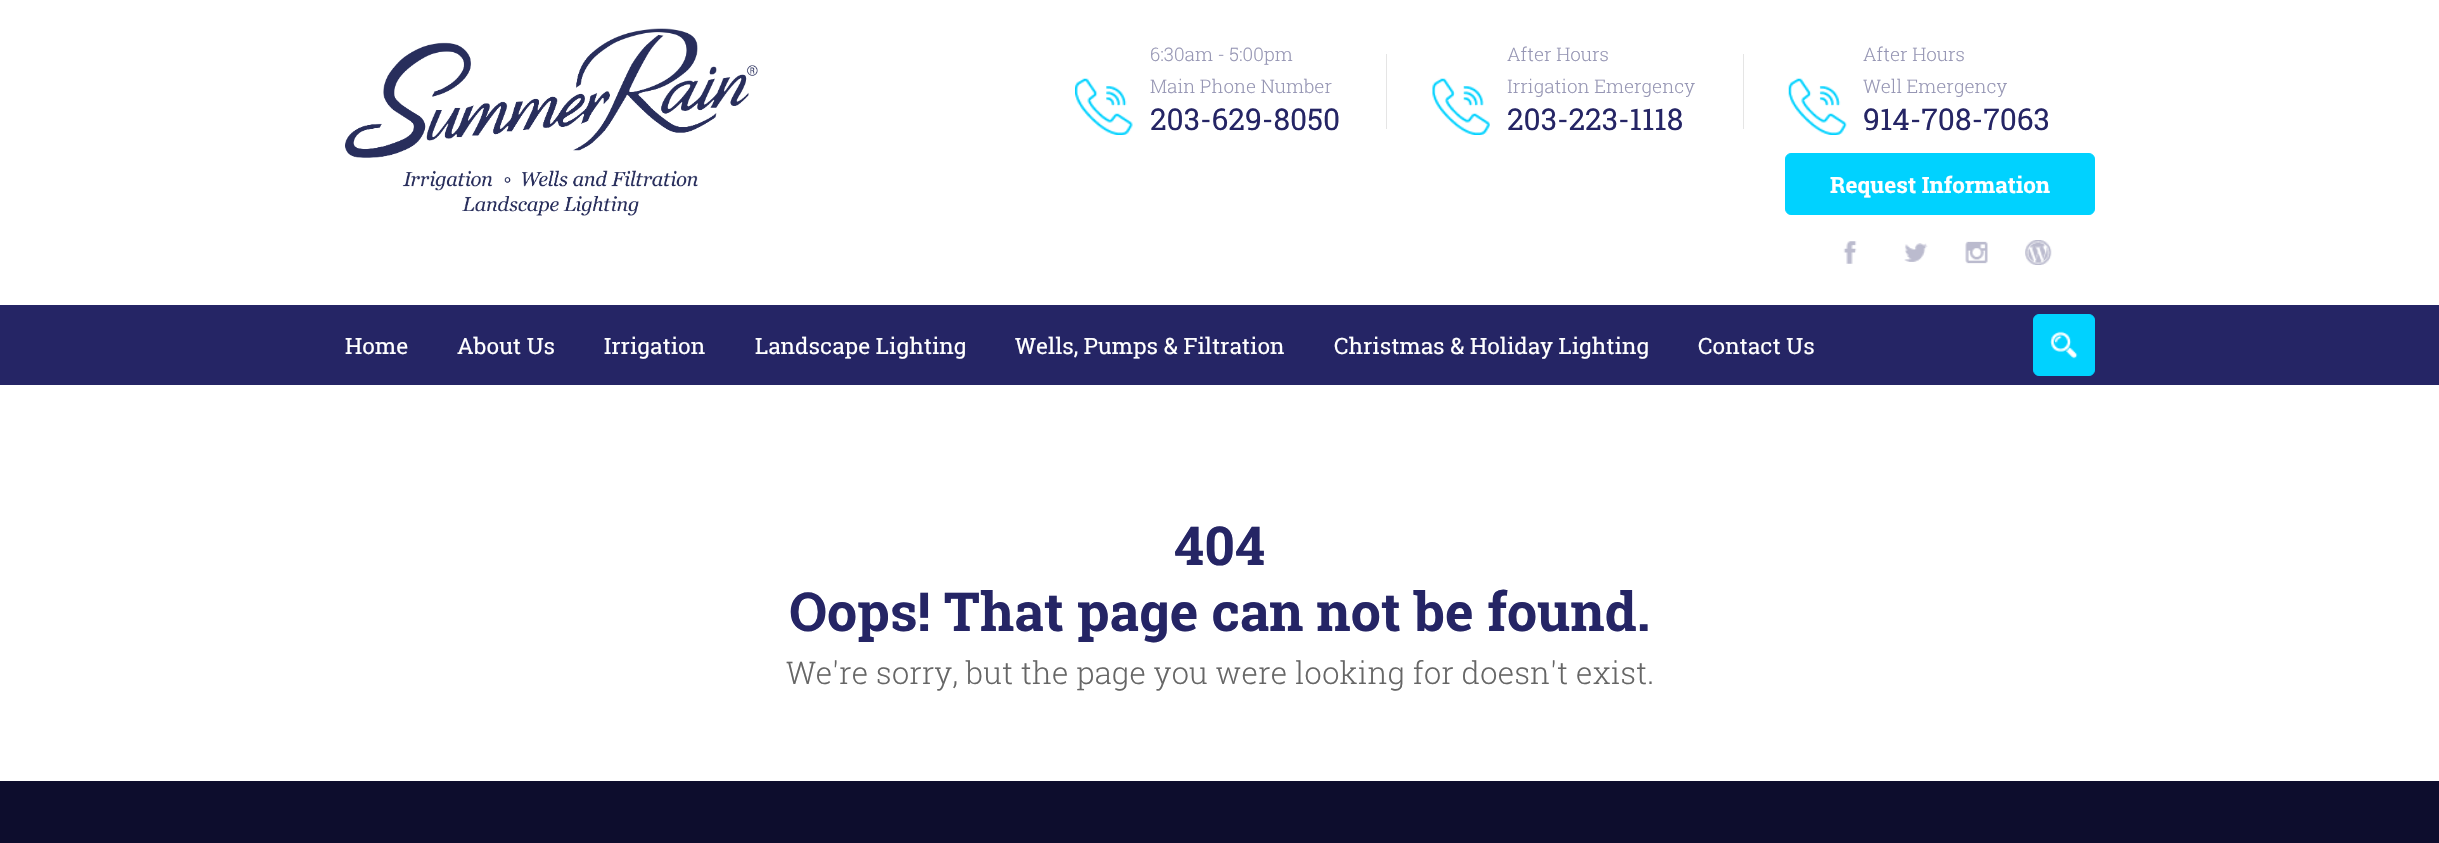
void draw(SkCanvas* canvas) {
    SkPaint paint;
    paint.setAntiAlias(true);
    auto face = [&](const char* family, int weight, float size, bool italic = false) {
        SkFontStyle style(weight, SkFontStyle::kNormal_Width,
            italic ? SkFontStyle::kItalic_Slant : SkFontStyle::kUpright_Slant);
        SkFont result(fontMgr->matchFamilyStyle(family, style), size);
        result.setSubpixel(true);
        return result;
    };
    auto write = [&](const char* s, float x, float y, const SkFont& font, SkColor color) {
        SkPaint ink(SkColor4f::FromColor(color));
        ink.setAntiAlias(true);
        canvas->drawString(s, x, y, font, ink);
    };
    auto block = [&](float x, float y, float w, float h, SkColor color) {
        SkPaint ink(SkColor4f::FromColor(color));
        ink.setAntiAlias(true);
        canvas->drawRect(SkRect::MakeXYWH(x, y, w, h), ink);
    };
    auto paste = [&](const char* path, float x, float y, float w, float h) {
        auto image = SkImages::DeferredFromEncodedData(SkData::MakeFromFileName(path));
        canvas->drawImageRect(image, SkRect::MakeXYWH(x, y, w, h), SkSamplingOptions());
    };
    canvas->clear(SK_ColorWHITE);
    paste("pic1.png", 345, 28, 413, 188);
    auto kFont1 = face("Roboto Slab", 300, 18.75f);
    write("6:30am - 5:00pm", 1150, 61, kFont1, SkColorSetRGB(150, 150, 180));
    write("Main Phone Number", 1150, 93, kFont1, SkColorSetRGB(150, 150, 180));
    paste("pic2.png", 1075, 78, 58, 57);
    auto kFont2 = face("Roboto Slab", 400, 30);
    write("203-629-8050", 1150, 130, kFont2, SkColorSetRGB(37, 37, 101));
    block(1386, 54, 1, 75, SkColorSetRGB(229, 229, 229));
    write("After Hours", 1507, 61, kFont1, SkColorSetRGB(150, 150, 180));
    write("Irrigation Emergency", 1507, 93, kFont1, SkColorSetRGB(150, 150, 180));
    paste("pic3.png", 1432, 78, 58, 57);
    write("203-223-1118", 1507, 130, kFont2, SkColorSetRGB(37, 37, 101));
    block(1743, 54, 1, 75, SkColorSetRGB(229, 229, 229));
    write("After Hours", 1863, 61, kFont1, SkColorSetRGB(150, 150, 180));
    write("Well Emergency", 1863, 93, kFont1, SkColorSetRGB(150, 150, 180));
    paste("pic4.png", 1788, 78, 59, 57);
    write("914-708-7063", 1863, 130, kFont2, SkColorSetRGB(37, 37, 101));
    paint.setColor(SkColorSetRGB(0, 210, 255));
    canvas->drawRoundRect(SkRect::MakeXYWH(1785.5f, 153.5f, 309, 61), 5.5f, 5.5f, paint);
    paint.setStyle(SkPaint::kStroke_Style);
    paint.setStrokeWidth(1);
    canvas->drawRoundRect(SkRect::MakeXYWH(1785.5f, 153.5f, 309, 61), 5.5f, 5.5f, paint);
    auto kFont3 = face("Roboto Slab", 700, 22.5f);
    write("Request Information", 1830, 193, kFont3, SK_ColorWHITE);
    paste("pic5.png", 1843, 241, 14, 23);
    paste("pic6.png", 1904, 243, 24, 19);
    paste("pic7.png", 1965, 241, 23, 23);
    paste("pic8.png", 2025, 240, 27, 25);
    block(0, 305, 2439, 80, SkColorSetRGB(37, 37, 101));
    auto kFont4 = face("Roboto Slab", 400, 22.5f);
    write("Home", 345, 354, kFont4, SK_ColorWHITE);
    write("About Us", 457, 354, kFont4, SK_ColorWHITE);
    write("Irrigation", 604, 354, kFont4, SK_ColorWHITE);
    write("Landscape Lighting", 755, 354, kFont4, SK_ColorWHITE);
    write("Wells, Pumps & Filtration", 1015, 354, kFont4, SK_ColorWHITE);
    write("Christmas & Holiday Lighting", 1334, 354, kFont4, SK_ColorWHITE);
    write("Contact Us", 1698, 354, kFont4, SK_ColorWHITE);
    paint.setStyle(SkPaint::kFill_Style);
    canvas->drawRoundRect(SkRect::MakeXYWH(2033.5f, 314.5f, 61, 61), 5.5f, 5.5f, paint);
    paint.setStyle(SkPaint::kStroke_Style);
    canvas->drawRoundRect(SkRect::MakeXYWH(2033.5f, 314.5f, 61, 61), 5.5f, 5.5f, paint);
    paste("pic9.png", 2050, 331, 28, 28);
    auto kFont5 = face("Roboto Slab", 700, 53.75f);
    write("404", 1174, 565, kFont5, SkColorSetRGB(37, 37, 101));
    write("Oops! That page can not be found.", 789, 631, kFont5, SkColorSetRGB(37, 37, 101));
    auto kFont6 = face("Roboto Slab", 300, 31.25f);
    write("We're sorry, but the page you were looking for doesn't exist.", 786, 684, kFont6, SkColorSetRGB(102, 102, 102));
    block(0, 781, 2439, 62, SkColorSetRGB(13, 13, 45));
}
